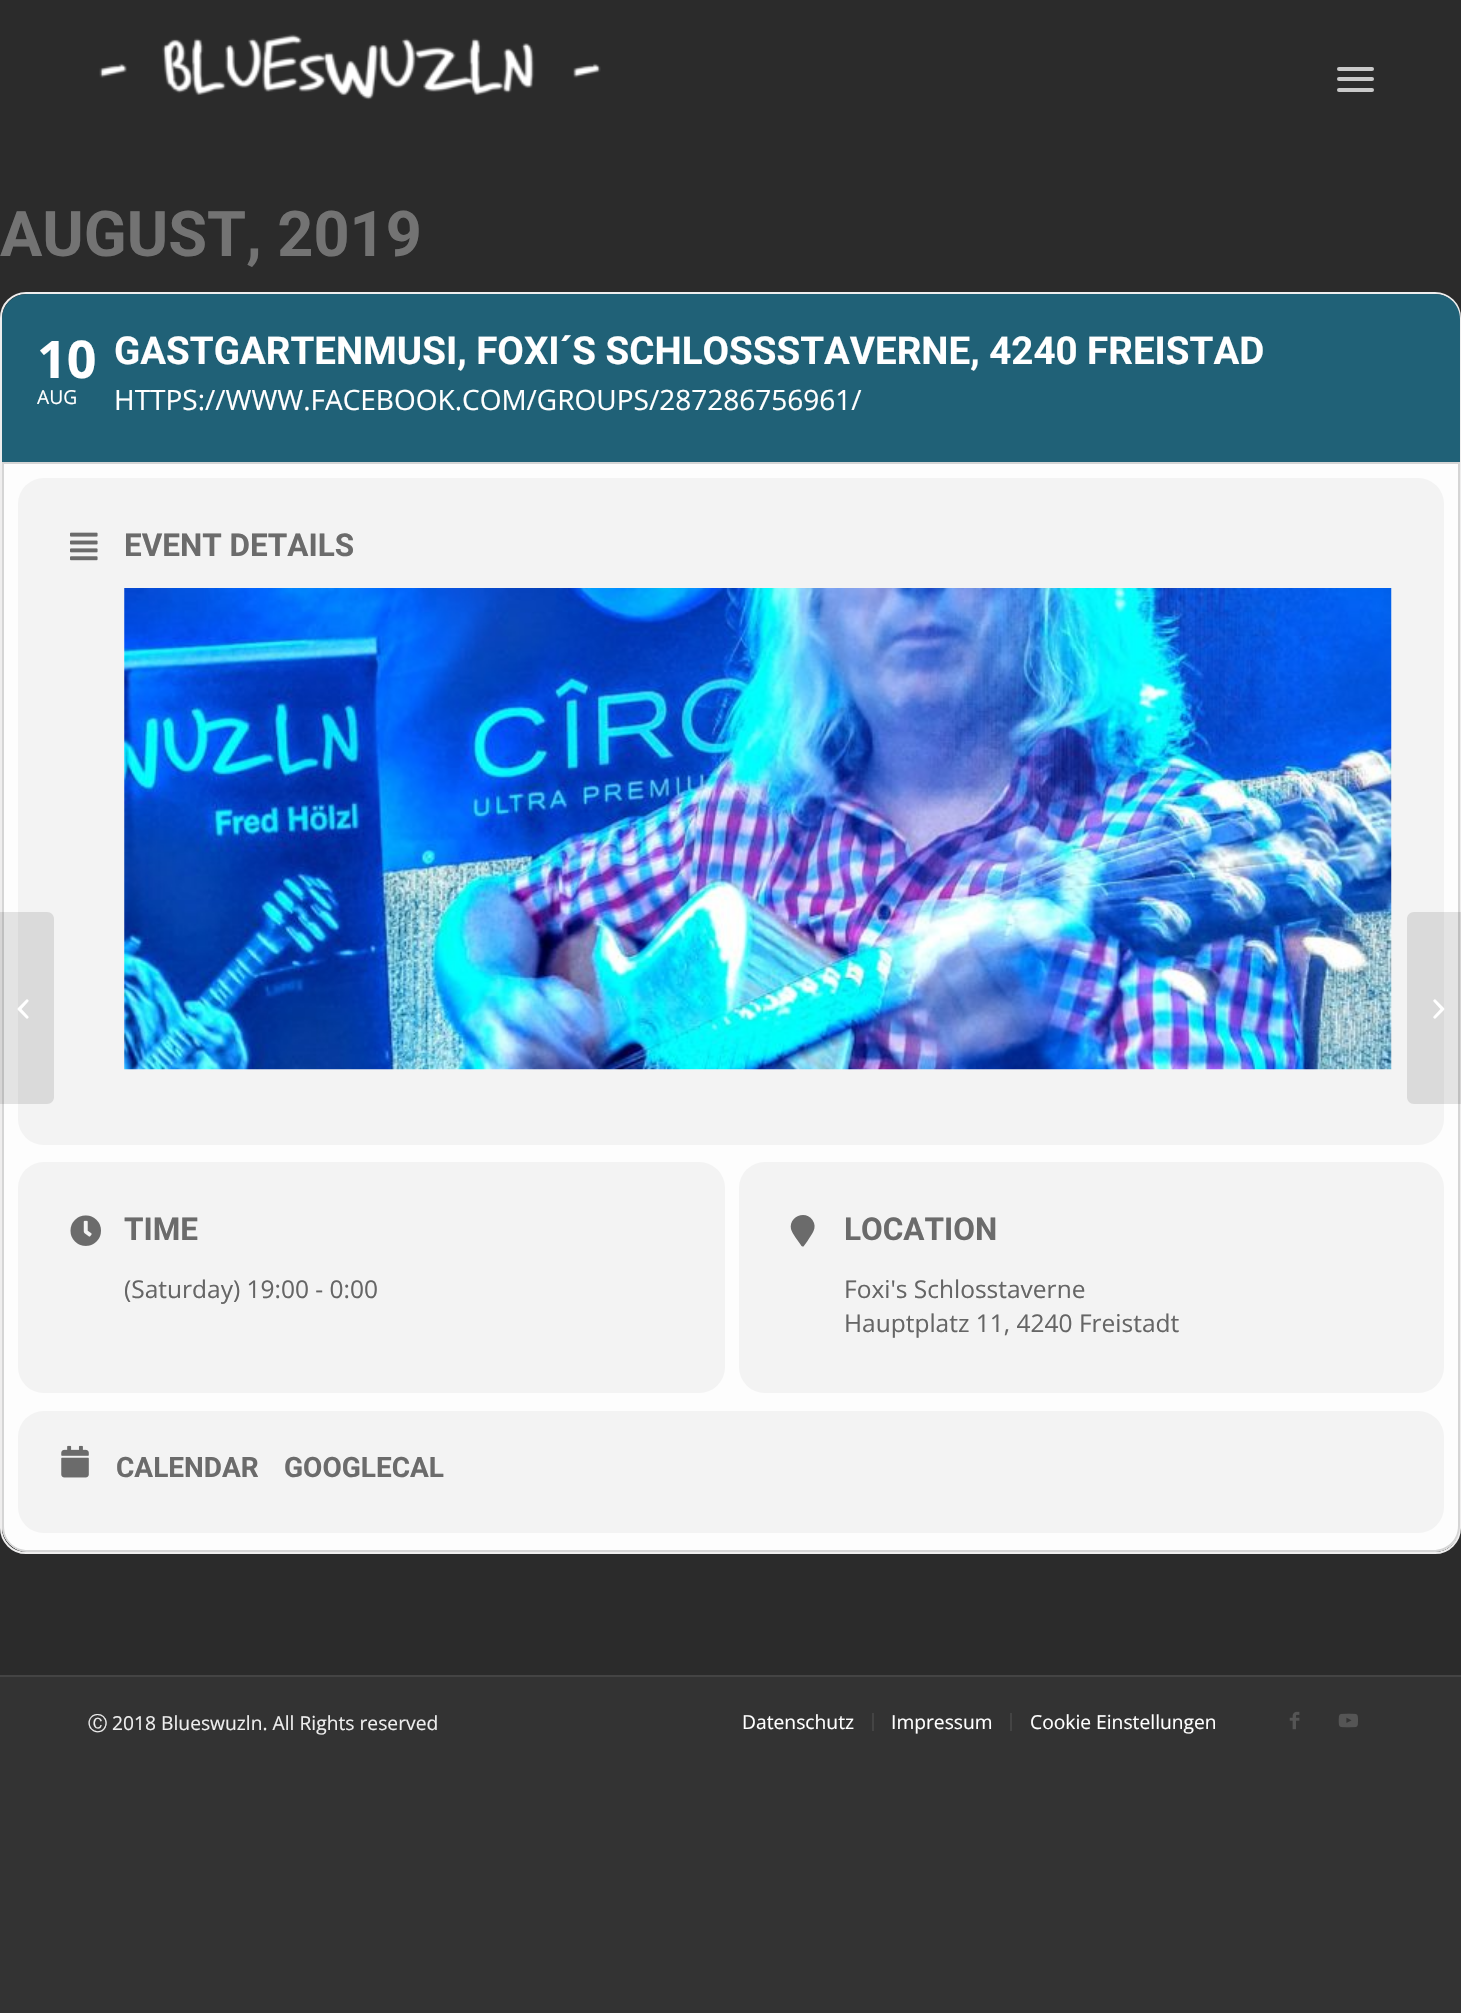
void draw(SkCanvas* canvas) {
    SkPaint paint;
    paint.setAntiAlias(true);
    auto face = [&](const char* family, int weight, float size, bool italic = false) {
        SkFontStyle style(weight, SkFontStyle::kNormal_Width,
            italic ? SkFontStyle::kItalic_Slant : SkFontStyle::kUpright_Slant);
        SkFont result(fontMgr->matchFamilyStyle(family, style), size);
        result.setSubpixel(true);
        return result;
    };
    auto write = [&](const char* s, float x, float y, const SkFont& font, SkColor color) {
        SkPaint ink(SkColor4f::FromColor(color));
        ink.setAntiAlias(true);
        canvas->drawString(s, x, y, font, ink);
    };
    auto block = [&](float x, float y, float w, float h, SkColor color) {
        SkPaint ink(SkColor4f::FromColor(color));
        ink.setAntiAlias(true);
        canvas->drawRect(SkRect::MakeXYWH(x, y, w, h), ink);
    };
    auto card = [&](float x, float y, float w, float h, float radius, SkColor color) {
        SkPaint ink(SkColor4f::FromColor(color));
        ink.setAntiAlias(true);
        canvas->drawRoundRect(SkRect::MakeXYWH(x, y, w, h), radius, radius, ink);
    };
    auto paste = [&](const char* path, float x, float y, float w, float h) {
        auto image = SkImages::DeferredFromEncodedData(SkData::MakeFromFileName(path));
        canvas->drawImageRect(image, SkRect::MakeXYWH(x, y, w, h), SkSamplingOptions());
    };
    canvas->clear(SkColorSetRGB(51, 51, 51));
    block(0, 0, 1461, 1675, SkColorSetRGB(43, 43, 43));
    paste("pic1.png", 99, 34, 502, 66);
    card(1337, 77, 37, 4, 2, SkColorSetRGB(201, 201, 201));
    card(1337, 67, 37, 4, 2, SkColorSetRGB(201, 201, 201));
    card(1337, 88, 37, 4, 2, SkColorSetRGB(201, 201, 201));
    auto kFont1 = face("Roboto", 700, 63);
    write("AUGUST, 2019", 0, 256, kFont1, SkColorSetRGB(115, 115, 115));
    paint.setStyle(SkPaint::kStroke_Style);
    paint.setStrokeWidth(2);
    paint.setColor(SkColorSetRGB(239, 238, 238));
    canvas->drawRoundRect(SkRect::MakeXYWH(1, 293, 1459, 1260), 25, 25, paint);
    block(2, 462, 1458, 2, SkColorSetRGB(213, 213, 213));
    paint.setStyle(SkPaint::kFill_Style);
    paint.setColor(SkColorSetRGB(32, 97, 119));
    canvas->drawPath(SkPathBuilder().moveTo(27, 294).lineTo(1435, 294).cubicTo(1449, 294, 1460, 305, 1460, 319).lineTo(1460, 462).lineTo(2, 462).lineTo(2, 319).cubicTo(2, 305, 13, 294, 27, 294).close().detach(), paint);
    auto kFont2 = face("Open Sans", 700, 52);
    write("10", 37, 378, kFont2, SK_ColorWHITE);
    auto kFont3 = face("Open Sans", 400, 19.25f);
    write("AUG", 37, 404, kFont3, SK_ColorWHITE);
    auto kFont4 = face("Roboto", 700, 38.5f);
    write("GASTGARTENMUSI, FOXI´S SCHLOSSSTAVERNE, 4240 FREISTAD", 114, 364, kFont4, SK_ColorWHITE);
    auto kFont5 = face("Open Sans", 400, 28);
    write("HTTPS://WWW.FACEBOOK.COM/GROUPS/287286756961/", 114, 410, kFont5, SK_ColorWHITE);
    canvas->save();
    canvas->clipPath(SkPathBuilder().moveTo(27, 294).lineTo(1435, 294).cubicTo(1449, 294, 1460, 305, 1460, 319).lineTo(1460, 1527).cubicTo(1460, 1541, 1449, 1552, 1435, 1552).lineTo(27, 1552).cubicTo(13, 1552, 2, 1541, 2, 1527).lineTo(2, 319).cubicTo(2, 305, 13, 294, 27, 294).close().detach(), true);
    paint.setColor(SkColorSetRGB(253, 253, 253));
    canvas->drawPath(SkPathBuilder().moveTo(2, 464).lineTo(1460, 464).lineTo(1460, 1526).cubicTo(1460, 1540.5f, 1448.5f, 1552, 1434, 1552).lineTo(28, 1552).cubicTo(13.5f, 1552, 2, 1540.5f, 2, 1526).close().detach(), paint);
    canvas->restore();
    paint.setColor(SkColorSetRGB(213, 213, 213));
    canvas->drawPath(SkPathBuilder(SkPathFillType::kEvenOdd).moveTo(2, 464).lineTo(1460, 464).lineTo(1460, 1526).cubicTo(1460, 1540, 1448, 1552, 1433, 1552).lineTo(28, 1552).cubicTo(14, 1552, 2, 1540, 2, 1526).close().moveTo(4, 464).lineTo(1458, 464).lineTo(1458, 1526).cubicTo(1458, 1540, 1447, 1550, 1433, 1550).lineTo(28, 1550).cubicTo(14, 1550, 4, 1540, 4, 1526).close().detach(), paint);
    card(18, 478, 1426, 667, 26, SkColorSetRGB(243, 243, 243));
    paste("pic2.png", 70, 532, 28, 29);
    auto kFont6 = face("Roboto", 700, 31.5f);
    write("EVENT DETAILS", 124, 556, kFont6, SkColorSetRGB(107, 107, 107));
    paste("pic3.png", 124, 588, 1268, 482);
    card(18, 1162, 707, 231, 26, SkColorSetRGB(243, 243, 243));
    paste("pic4.png", 70, 1215, 31, 31);
    write("TIME", 124, 1240, kFont6, SkColorSetRGB(107, 107, 107));
    auto kFont7 = face("Open Sans", 400, 24.5f);
    write("(Saturday) 19:00 - 0:00", 124, 1298, kFont7, SkColorSetRGB(101, 101, 101));
    card(739, 1162, 705, 231, 26, SkColorSetRGB(243, 243, 243));
    paint.setColor(SkColorSetRGB(107, 107, 107));
    canvas->drawPath(SkPathBuilder().moveTo(801.5f, 1246).cubicTo(799, 1242, 792, 1233.5f, 791, 1229).cubicTo(788.5f, 1216.5f, 805.5f, 1209.5f, 812.5f, 1220).cubicTo(818, 1228, 811.5f, 1234.5f, 807.5f, 1241).lineTo(803.5f, 1246.5f).cubicTo(803, 1246.5f, 802, 1246.5f, 801.5f, 1246).close().detach(), paint);
    write("LOCATION", 844, 1240, kFont6, SkColorSetRGB(107, 107, 107));
    write("Foxi's Schlosstaverne", 844, 1298, kFont7, SkColorSetRGB(101, 101, 101));
    write("Hauptplatz 11, 4240 Freistadt", 844, 1332, kFont7, SkColorSetRGB(101, 101, 101));
    card(18, 1411, 1426, 122, 26, SkColorSetRGB(243, 243, 243));
    paste("pic5.png", 61, 1445, 28, 33);
    auto kFont8 = face("Roboto", 700, 28);
    write("CALENDAR", 116, 1477, kFont8, SkColorSetRGB(107, 107, 107));
    write("GOOGLECAL", 284, 1477, kFont8, SkColorSetRGB(107, 107, 107));
    block(0, 1675, 1461, 2, SkColorSetRGB(68, 68, 68));
    auto kFont9 = face("WenQuanYi Zen Hei", 500, 19.25f);
    write("Ⓒ", 88, 1730, kFont9, SkColorSetRGB(238, 238, 238));
    auto kFont10 = face("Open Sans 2", 400, 19.25f);
    write("2018 Blueswuzln. All Rights reserved", 112, 1730, kFont10, SkColorSetRGB(238, 238, 238));
    write("Datenschutz", 742, 1729, kFont10, SK_ColorWHITE);
    block(872, 1713, 2, 18, SkColorSetRGB(68, 68, 68));
    write("Impressum", 891, 1729, kFont10, SK_ColorWHITE);
    block(1010, 1713, 2, 18, SkColorSetRGB(68, 68, 68));
    write("Cookie Einstellungen", 1030, 1729, kFont10, SK_ColorWHITE);
    paste("pic6.png", 1289, 1711, 11, 19);
    paste("pic7.png", 1338, 1713, 20, 15);
    paint.setColor(SkColorSetARGB(26, 0, 0, 0));
    canvas->drawPath(SkPathBuilder().moveTo(0, 912).lineTo(47, 912).cubicTo(51, 912, 54, 915, 54, 919).lineTo(54, 1097).cubicTo(54, 1101, 51, 1104, 47, 1104).lineTo(0, 1104).close().detach(), paint);
    paste("pic8.png", 17, 999, 12, 20);
    canvas->drawPath(SkPathBuilder().moveTo(1414, 912).lineTo(1461, 912).lineTo(1461, 1104).lineTo(1414, 1104).cubicTo(1410, 1104, 1407, 1101, 1407, 1097).lineTo(1407, 919).cubicTo(1407, 915, 1410, 912, 1414, 912).close().detach(), paint);
    paste("pic9.png", 1433, 999, 12, 20);
}
